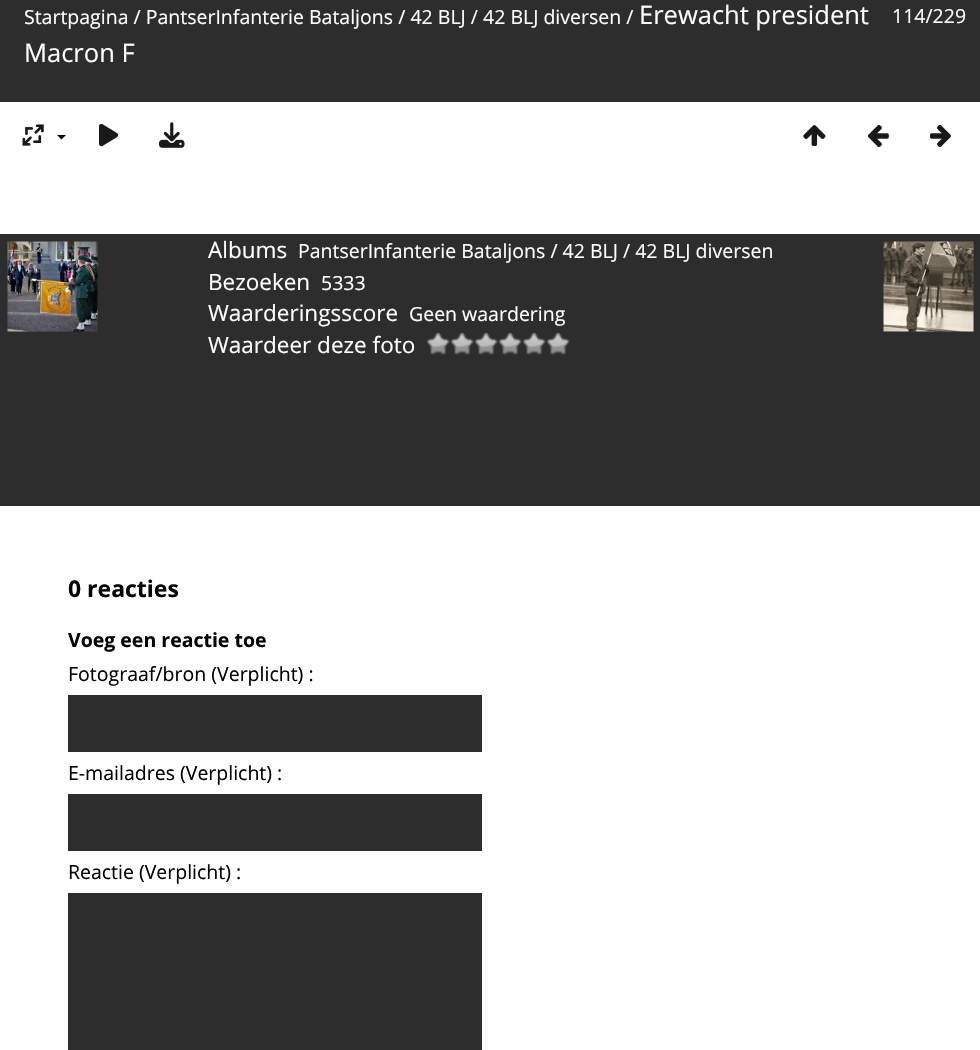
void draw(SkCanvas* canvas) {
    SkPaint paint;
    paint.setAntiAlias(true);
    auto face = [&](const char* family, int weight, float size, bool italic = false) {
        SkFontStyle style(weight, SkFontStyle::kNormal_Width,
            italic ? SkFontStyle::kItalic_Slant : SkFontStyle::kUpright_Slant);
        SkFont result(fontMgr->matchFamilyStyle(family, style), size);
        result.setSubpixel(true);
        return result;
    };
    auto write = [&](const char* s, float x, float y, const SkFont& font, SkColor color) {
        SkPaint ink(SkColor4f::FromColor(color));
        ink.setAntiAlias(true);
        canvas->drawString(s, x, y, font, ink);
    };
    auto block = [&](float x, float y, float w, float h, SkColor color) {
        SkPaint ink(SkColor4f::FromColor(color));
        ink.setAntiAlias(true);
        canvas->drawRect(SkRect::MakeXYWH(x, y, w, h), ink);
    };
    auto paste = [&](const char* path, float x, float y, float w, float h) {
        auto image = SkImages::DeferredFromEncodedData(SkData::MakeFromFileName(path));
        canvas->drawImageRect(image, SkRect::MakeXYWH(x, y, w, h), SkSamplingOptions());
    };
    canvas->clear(SK_ColorWHITE);
    block(0, 0, 980, 102, SkColorSetRGB(45, 45, 45));
    auto kFont1 = face("Open Sans", 400, 19.5f);
    write("Startpagina / PantserInfanterie Bataljons / 42 BLJ / 42 BLJ diversen /", 24, 24, kFont1, SK_ColorWHITE);
    auto kFont2 = face("Open Sans", 400, 25.5f);
    write("Erewacht president", 639, 24, kFont2, SK_ColorWHITE);
    write("Macron F", 24, 62, kFont2, SK_ColorWHITE);
    write("114/229", 892, 23, kFont1, SK_ColorWHITE);
    paste("pic1.png", 22, 124, 22, 22);
    paint.setColor(SK_ColorBLACK);
    canvas->drawPath(SkPathBuilder().moveTo(57, 135).lineTo(66, 135).lineTo(61.5f, 139.5f).close().detach(), paint);
    paste("pic2.png", 99, 123, 20, 24);
    paste("pic3.png", 159, 122, 26, 26);
    paste("pic4.png", 803, 125, 23, 21);
    paste("pic5.png", 868, 125, 21, 22);
    paste("pic6.png", 930, 124, 21, 23);
    block(0, 234, 980, 272, SkColorSetRGB(45, 45, 45));
    auto kFont3 = face("Open Sans", 400, 22.5f);
    write("Albums", 208, 258, kFont3, SK_ColorWHITE);
    write("PantserInfanterie Bataljons / 42 BLJ / 42 BLJ diversen", 298, 258, kFont1, SK_ColorWHITE);
    write("Bezoeken", 208, 290, kFont3, SK_ColorWHITE);
    write("5333", 321, 290, kFont1, SK_ColorWHITE);
    write("Waarderingsscore", 208, 321, kFont3, SK_ColorWHITE);
    write("Geen waardering", 409, 321, kFont1, SK_ColorWHITE);
    write("Waardeer deze foto", 208, 353, kFont3, SK_ColorWHITE);
    paste("pic7.png", 426, 333, 24, 22);
    paste("pic7.png", 450, 333, 24, 22);
    paste("pic7.png", 474, 333, 24, 22);
    paste("pic8.png", 498, 333, 24, 22);
    paste("pic9.png", 522, 333, 24, 22);
    paste("pic10.png", 546, 333, 24, 22);
    paste("pic11.png", 7, 241, 91, 91);
    paste("pic12.png", 883, 241, 91, 91);
    auto kFont4 = face("Open Sans", 700, 23);
    write("0 reacties", 68, 597, kFont4, SK_ColorBLACK);
    auto kFont5 = face("Open Sans", 700, 19.5f);
    write("Voeg een reactie toe", 68, 647, kFont5, SK_ColorBLACK);
    write("Fotograaf/bron (Verplicht) :", 68, 681, kFont1, SK_ColorBLACK);
    block(68, 695, 414, 57, SkColorSetRGB(45, 45, 45));
    write("E-mailadres (Verplicht) :", 68, 780, kFont1, SK_ColorBLACK);
    block(68, 794, 414, 57, SkColorSetRGB(45, 45, 45));
    write("Reactie (Verplicht) :", 68, 879, kFont1, SK_ColorBLACK);
    block(68, 893, 414, 157, SkColorSetRGB(45, 45, 45));
}
